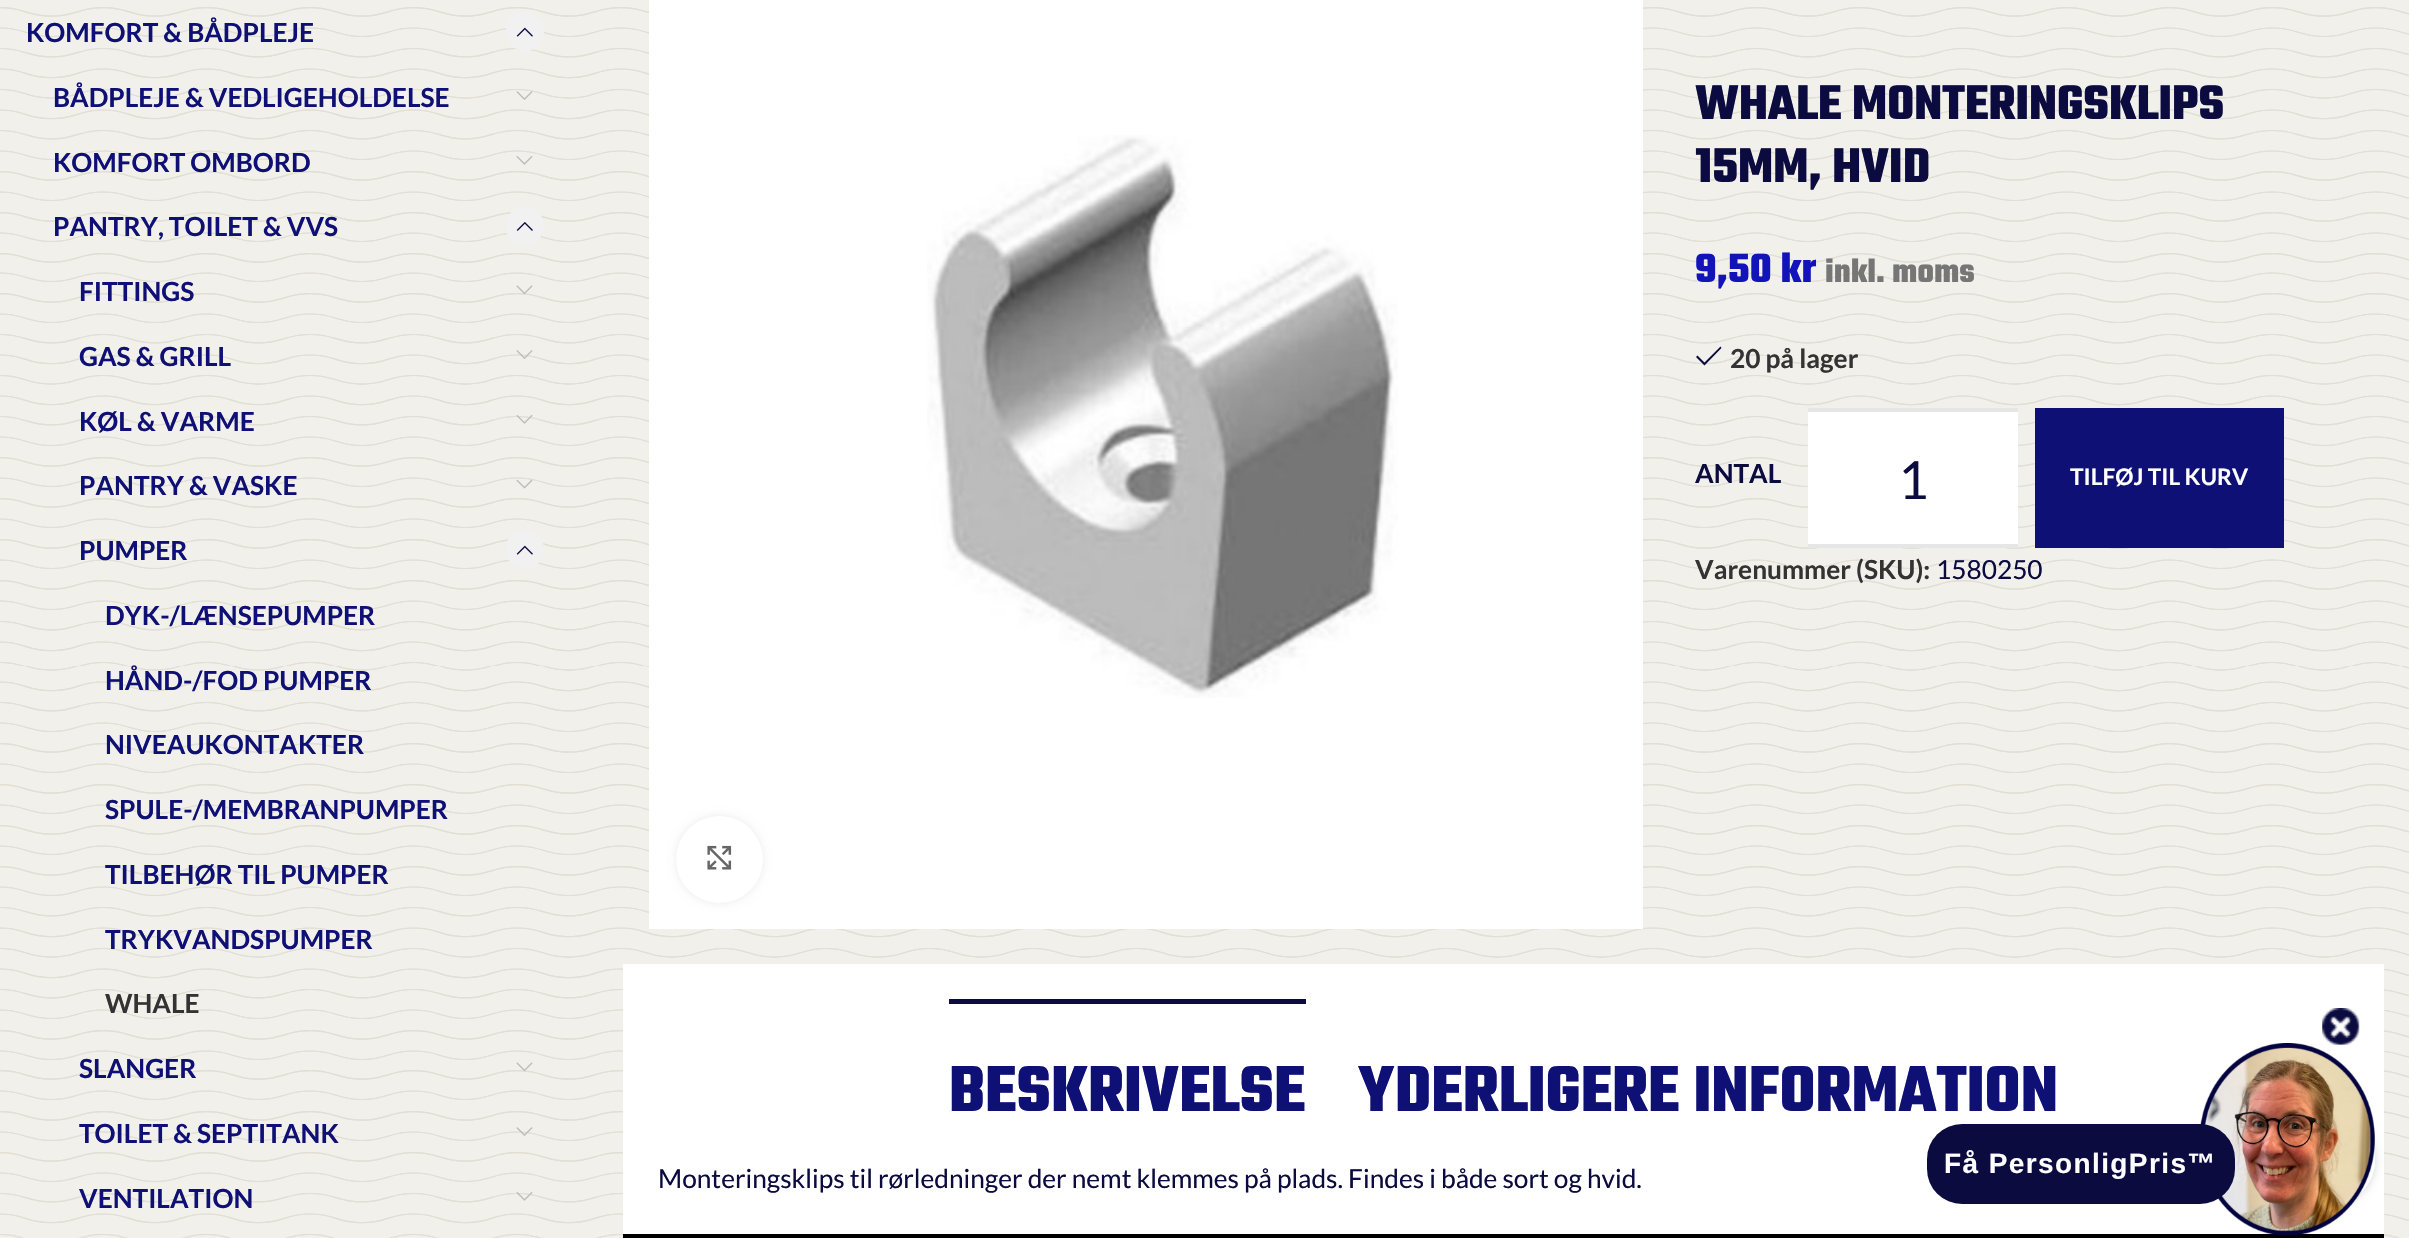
void draw(SkCanvas* canvas) {
    SkPaint paint;
    paint.setAntiAlias(true);
    auto face = [&](const char* family, int weight, float size, bool italic = false) {
        SkFontStyle style(weight, SkFontStyle::kNormal_Width,
            italic ? SkFontStyle::kItalic_Slant : SkFontStyle::kUpright_Slant);
        SkFont result(fontMgr->matchFamilyStyle(family, style), size);
        result.setSubpixel(true);
        return result;
    };
    auto write = [&](const char* s, float x, float y, const SkFont& font, SkColor color) {
        SkPaint ink(SkColor4f::FromColor(color));
        ink.setAntiAlias(true);
        canvas->drawString(s, x, y, font, ink);
    };
    auto writeSpaced = [&](const char* s, float x, float y, const SkFont& font, const SkPaint& ink, float letter, float word) {
        std::vector<SkGlyphID> glyphs(font.countText(s, strlen(s), SkTextEncoding::kUTF8));
        std::vector<float> xs(glyphs.size());
        font.textToGlyphs(s, strlen(s), SkTextEncoding::kUTF8, glyphs);
        font.getXPos(glyphs, xs, x);
        float extra = 0;
        for (size_t i = 0; i < glyphs.size(); i++) {
            xs[i] += extra;
            extra += letter + word * (glyphs[i] == font.unicharToGlyph(' '));
        }
        canvas->drawTextBlob(SkTextBlob::MakeFromPosHGlyphs(glyphs, xs, y, font), 0, 0, ink);
    };
    auto block = [&](float x, float y, float w, float h, SkColor color) {
        SkPaint ink(SkColor4f::FromColor(color));
        ink.setAntiAlias(true);
        canvas->drawRect(SkRect::MakeXYWH(x, y, w, h), ink);
    };
    auto card = [&](float x, float y, float w, float h, float radius, SkColor color) {
        SkPaint ink(SkColor4f::FromColor(color));
        ink.setAntiAlias(true);
        canvas->drawRoundRect(SkRect::MakeXYWH(x, y, w, h), radius, radius, ink);
    };
    auto paste = [&](const char* path, float x, float y, float w, float h) {
        auto image = SkImages::DeferredFromEncodedData(SkData::MakeFromFileName(path));
        canvas->drawImageRect(image, SkRect::MakeXYWH(x, y, w, h), SkSamplingOptions());
    };
    canvas->clear(SkColorSetRGB(242, 240, 234));
    paste("pic1.png", 0, 7, 2409, 1231);
    auto kFont1 = face("Lato", 700, 26.25f);
    write("KOMFORT & BÅDPLEJE", 26, 42, kFont1, SkColorSetRGB(15, 16, 117));
    paint.setColor(SkColorSetRGB(241, 241, 241));
    canvas->drawPath(SkPathBuilder().moveTo(524.5f, 51).cubicTo(514, 51, 505.5f, 42, 505.5f, 31.5f).cubicTo(505.5f, 21, 514, 12, 524.5f, 12).cubicTo(535.5f, 12, 544, 21, 544, 31.5f).cubicTo(544, 42, 535.5f, 51, 524.5f, 51).close().detach(), paint);
    paste("pic2.png", 516, 27, 17, 10);
    write("BÅDPLEJE & VEDLIGEHOLDELSE", 53, 107, kFont1, SkColorSetRGB(15, 16, 117));
    paste("pic3.png", 516, 91, 17, 9);
    write("KOMFORT OMBORD", 53, 172, kFont1, SkColorSetRGB(15, 16, 117));
    paste("pic4.png", 516, 156, 17, 9);
    write("PANTRY, TOILET & VVS", 53, 236, kFont1, SkColorSetRGB(15, 16, 117));
    canvas->drawPath(SkPathBuilder().moveTo(524.5f, 245).cubicTo(514, 245, 505.5f, 236.5f, 505.5f, 226).cubicTo(505.5f, 215, 514, 206.5f, 524.5f, 206.5f).cubicTo(535.5f, 206.5f, 544, 215, 544, 226).cubicTo(544, 236.5f, 535.5f, 245, 524.5f, 245).close().detach(), paint);
    paste("pic5.png", 516, 222, 17, 9);
    write("FITTINGS", 79, 301, kFont1, SkColorSetRGB(15, 16, 117));
    paste("pic6.png", 516, 285, 17, 10);
    write("GAS & GRILL", 79, 366, kFont1, SkColorSetRGB(15, 16, 117));
    paste("pic7.png", 516, 350, 17, 9);
    write("KØL & VARME", 79, 431, kFont1, SkColorSetRGB(15, 16, 117));
    paste("pic8.png", 516, 415, 17, 9);
    write("PANTRY & VASKE", 79, 495, kFont1, SkColorSetRGB(15, 16, 117));
    paste("pic9.png", 516, 479, 17, 10);
    write("PUMPER", 79, 560, kFont1, SkColorSetRGB(15, 16, 117));
    canvas->drawPath(SkPathBuilder().moveTo(524.5f, 569).cubicTo(514, 569, 505.5f, 560, 505.5f, 549.5f).cubicTo(505.5f, 539, 514, 530, 524.5f, 530).cubicTo(535.5f, 530, 544, 539, 544, 549.5f).cubicTo(544, 560, 535.5f, 569, 524.5f, 569).close().detach(), paint);
    paste("pic2.png", 516, 545, 17, 10);
    write("DYK-/LÆNSEPUMPER", 105, 625, kFont1, SkColorSetRGB(15, 16, 117));
    write("HÅND-/FOD PUMPER", 105, 690, kFont1, SkColorSetRGB(15, 16, 117));
    write("NIVEAUKONTAKTER", 105, 754, kFont1, SkColorSetRGB(15, 16, 117));
    write("SPULE-/MEMBRANPUMPER", 105, 819, kFont1, SkColorSetRGB(15, 16, 117));
    write("TILBEHØR TIL PUMPER", 105, 884, kFont1, SkColorSetRGB(15, 16, 117));
    write("TRYKVANDSPUMPER", 105, 949, kFont1, SkColorSetRGB(15, 16, 117));
    write("WHALE", 105, 1013, kFont1, SkColorSetRGB(51, 51, 51));
    write("SLANGER", 79, 1078, kFont1, SkColorSetRGB(15, 16, 117));
    paste("pic6.png", 516, 1062, 17, 10);
    write("TOILET & SEPTITANK", 79, 1143, kFont1, SkColorSetRGB(15, 16, 117));
    paste("pic10.png", 516, 1127, 17, 9);
    write("VENTILATION", 79, 1208, kFont1, SkColorSetRGB(15, 16, 117));
    paste("pic8.png", 516, 1192, 17, 9);
    block(649, 0, 994, 929, SK_ColorWHITE);
    paste("pic11.png", 927, 135, 471, 563);
    paint.setColor(SkColorSetARGB(20, 0, 0, 0));
    paint.setMaskFilter(SkMaskFilter::MakeBlur(kNormal_SkBlurStyle, 4.5f));
    canvas->drawRoundRect(SkRect::MakeXYWH(676, 816, 87, 87), 43.5f, 43.5f, paint);
    paint.setMaskFilter(nullptr);
    paint.setColor(SK_ColorWHITE);
    canvas->drawCircle(719.5f, 859.5f, 43.5f, paint);
    paste("pic12.png", 707, 845, 25, 25);
    auto kFont2 = face("Teko", 700, 52.5f);
    write("WHALE MONTERINGSKLIPS", 1695, 119, kFont2, SkColorSetRGB(11, 11, 64));
    write("15MM, HVID", 1695, 182, kFont2, SkColorSetRGB(11, 11, 64));
    auto kFont3 = face("Teko", 700, 44);
    write("9,50 kr", 1695, 282, kFont3, SkColorSetRGB(18, 20, 186));
    auto kFont4 = face("Teko", 700, 35);
    write("inkl. moms", 1825, 282, kFont4, SkColorSetRGB(118, 118, 118));
    paint.setColor(SkColorSetRGB(11, 11, 64));
    canvas->drawPath(SkPathBuilder().moveTo(1721.5f, 348).lineTo(1720.5f, 346.5f).lineTo(1704.5f, 362.5f).lineTo(1697.5f, 355.5f).lineTo(1696, 357).lineTo(1704.5f, 365.5f).close().detach(), paint);
    write("20 på lager", 1730, 368, kFont1, SkColorSetRGB(51, 51, 51));
    write("ANTAL", 1695, 483, kFont1, SkColorSetRGB(11, 11, 64));
    block(1808, 412, 210, 132, SK_ColorWHITE);
    block(1808, 408, 210, 4, SkColorSetRGB(230, 230, 230));
    block(1808, 544, 210, 4, SkColorSetRGB(230, 230, 230));
    auto kFont5 = face("Lato", 400, 52.5f);
    write("1", 1898, 499, kFont5, SkColorSetRGB(11, 11, 64));
    block(2035, 408, 249, 140, SkColorSetRGB(15, 16, 117));
    auto kFont6 = face("Lato", 700, 22.75f);
    write("TILFØJ TIL KURV", 2070, 485, kFont6, SK_ColorWHITE);
    write("Varenummer (SKU):", 1695, 579, kFont1, SkColorSetRGB(51, 51, 51));
    auto kFont7 = face("Lato", 400, 26.25f);
    write("1580250", 1936, 579, kFont7, SkColorSetRGB(11, 11, 64));
    block(623, 964, 1761, 270, SK_ColorWHITE);
    block(623, 1234, 1761, 4, SK_ColorBLACK);
    block(949, 999, 357, 5, SkColorSetRGB(11, 11, 64));
    auto kFont8 = face("Teko", 700, 70);
    write("BESKRIVELSE", 949, 1111, kFont8, SkColorSetRGB(15, 16, 117));
    write("YDERLIGERE INFORMATION", 1358, 1111, kFont8, SkColorSetRGB(15, 16, 117));
    write("Monteringsklips til rørledninger der nemt klemmes på plads. Findes i både sort og hvid.", 658, 1188, kFont7, SkColorSetRGB(11, 11, 64));
    canvas->save();
    canvas->clipPath(SkPathBuilder(SkPathFillType::kEvenOdd).moveTo(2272, 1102).lineTo(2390, 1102).lineTo(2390, 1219).lineTo(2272, 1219).close().moveTo(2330.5f, 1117).lineTo(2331.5f, 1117).cubicTo(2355.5f, 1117, 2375, 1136.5f, 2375, 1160.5f).cubicTo(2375, 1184.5f, 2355.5f, 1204, 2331.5f, 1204).lineTo(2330.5f, 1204).cubicTo(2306.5f, 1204, 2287, 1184.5f, 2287, 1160.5f).cubicTo(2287, 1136.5f, 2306.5f, 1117, 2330.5f, 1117).close().detach(), true);
    paint.setColor(SkColorSetARGB(43, 0, 0, 0));
    paint.setMaskFilter(SkMaskFilter::MakeBlur(kNormal_SkBlurStyle, 4.5f));
    canvas->drawRoundRect(SkRect::MakeXYWH(2287, 1117, 88, 87), 43.5f, 43.5f, paint);
    paint.setMaskFilter(nullptr);
    canvas->restore();
    card(2287, 1117, 88, 87, 43.5f, SkColorSetARGB(230, 255, 255, 255));
    paste("pic14.png", 2200, 1043, 175, 193);
    card(1927, 1124, 308, 80, 35, SkColorSetRGB(11, 11, 64));
    auto kFont9 = face("Liberation Sans", 700, 28);
    paint.setColor(SK_ColorWHITE);
    writeSpaced("Få PersonligPris™", 1944, 1173, kFont9, paint, 1.4f, 0);
    paste("pic13.png", 2322, 1008, 38, 37);
}
